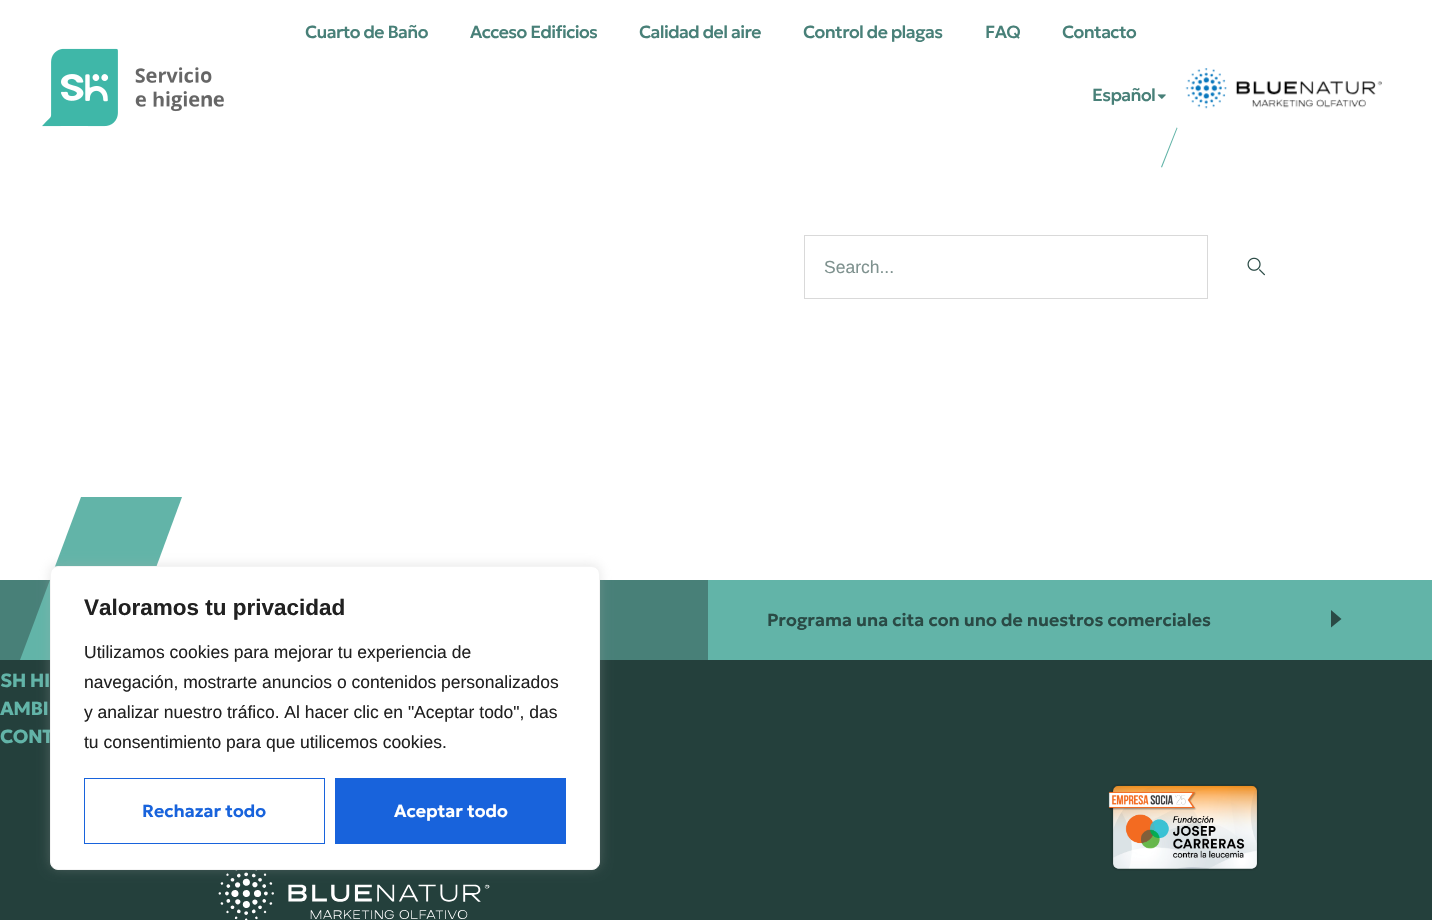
void draw(SkCanvas* canvas) {
    SkPaint paint;
    paint.setAntiAlias(true);
    auto face = [&](const char* family, int weight, float size, bool italic = false) {
        SkFontStyle style(weight, SkFontStyle::kNormal_Width,
            italic ? SkFontStyle::kItalic_Slant : SkFontStyle::kUpright_Slant);
        SkFont result(fontMgr->matchFamilyStyle(family, style), size);
        result.setSubpixel(true);
        return result;
    };
    auto write = [&](const char* s, float x, float y, const SkFont& font, SkColor color) {
        SkPaint ink(SkColor4f::FromColor(color));
        ink.setAntiAlias(true);
        canvas->drawString(s, x, y, font, ink);
    };
    auto writeSpaced = [&](const char* s, float x, float y, const SkFont& font, const SkPaint& ink, float letter, float word) {
        std::vector<SkGlyphID> glyphs(font.countText(s, strlen(s), SkTextEncoding::kUTF8));
        std::vector<float> xs(glyphs.size());
        font.textToGlyphs(s, strlen(s), SkTextEncoding::kUTF8, glyphs);
        font.getXPos(glyphs, xs, x);
        float extra = 0;
        for (size_t i = 0; i < glyphs.size(); i++) {
            xs[i] += extra;
            extra += letter + word * (glyphs[i] == font.unicharToGlyph(' '));
        }
        canvas->drawTextBlob(SkTextBlob::MakeFromPosHGlyphs(glyphs, xs, y, font), 0, 0, ink);
    };
    auto block = [&](float x, float y, float w, float h, SkColor color) {
        SkPaint ink(SkColor4f::FromColor(color));
        ink.setAntiAlias(true);
        canvas->drawRect(SkRect::MakeXYWH(x, y, w, h), ink);
    };
    auto paste = [&](const char* path, float x, float y, float w, float h) {
        auto image = SkImages::DeferredFromEncodedData(SkData::MakeFromFileName(path));
        canvas->drawImageRect(image, SkRect::MakeXYWH(x, y, w, h), SkSamplingOptions());
    };
    canvas->clear(SK_ColorWHITE);
    paste("pic1.png", 42, 48, 182, 79);
    auto kFont1 = face("Geologica", 500, 17.5f);
    paint.setColor(SkColorSetRGB(72, 128, 120));
    writeSpaced("Cuarto de Baño", 305, 38, kFont1, paint, -0.6f, 0);
    writeSpaced("Acceso Edificios", 470, 38, kFont1, paint, -0.6f, 0);
    writeSpaced("Calidad del aire", 639, 38, kFont1, paint, -0.6f, 0);
    writeSpaced("Control de plagas", 803, 38, kFont1, paint, -0.6f, 0);
    writeSpaced("FAQ", 985, 38, kFont1, paint, -0.6f, 0);
    writeSpaced("Contacto", 1062, 38, kFont1, paint, -0.6f, 0);
    writeSpaced("Español", 1092, 101, kFont1, paint, -0.6f, 0);
    paste("pic2.png", 1157, 94, 9, 5);
    paint.setColor(SkColorSetRGB(98, 180, 168));
    canvas->drawPath(SkPathBuilder().moveTo(1176.5f, 127.5f).lineTo(1177.5f, 128).lineTo(1162, 167.5f).lineTo(1161, 167).lineTo(1176.5f, 128).close().detach(), paint);
    paste("pic3.png", 1185, 68, 197, 41);
    paint.setStyle(SkPaint::kStroke_Style);
    paint.setStrokeWidth(1);
    paint.setColor(SkColorSetRGB(217, 217, 217));
    canvas->drawRect(SkRect::MakeXYWH(804.5f, 235.5f, 403, 63), paint);
    auto kFont2 = face("Liberation Sans", 400, 17.5f);
    write("Search...", 824, 273, kFont2, SkColorSetRGB(127, 146, 143));
    paste("pic4.png", 1247, 257, 18, 19);
    block(0, 580, 708, 80, SkColorSetRGB(72, 128, 120));
    block(708, 580, 724, 80, SkColorSetRGB(98, 180, 168));
    paint.setStyle(SkPaint::kFill_Style);
    paint.setColor(SkColorSetRGB(98, 180, 168));
    canvas->drawPath(SkPathBuilder().moveTo(81, 497).lineTo(20, 660).lineTo(122, 660).lineTo(182, 497).close().detach(), paint);
    auto kFont3 = face("Geologica", 600, 17.5f);
    write("Programa una cita con uno de nuestros comerciales", 767, 626, kFont3, SkColorSetRGB(42, 74, 69));
    paint.setColor(SkColorSetRGB(42, 74, 69));
    canvas->drawPath(SkPathBuilder().moveTo(1341.5f, 619).lineTo(1331, 627.5f).lineTo(1331, 610).close().detach(), paint);
    block(0, 660, 1432, 260, SkColorSetRGB(36, 64, 60));
    auto kFont4 = face("Geologica", 700, 19);
    paint.setColor(SkColorSetRGB(98, 180, 168));
    writeSpaced("SH HI", 0, 687, kFont4, paint, -0.5f, 0);
    writeSpaced("AMBI", 0, 715, kFont4, paint, -0.5f, 0);
    writeSpaced("CONT", 0, 743, kFont4, paint, -0.5f, 0);
    paste("pic5.png", 1108, 784, 151, 87);
    paste("pic6.png", 218, 870, 272, 50);
    paint.setColor(SkColorSetARGB(77, 172, 171, 171));
    paint.setMaskFilter(SkMaskFilter::MakeBlur(kNormal_SkBlurStyle, 6));
    canvas->drawRoundRect(SkRect::MakeXYWH(50, 565, 550, 304), 8, 8, paint);
    paint.setMaskFilter(nullptr);
    paint.setColor(SK_ColorWHITE);
    canvas->drawRoundRect(SkRect::MakeXYWH(50.5f, 566.5f, 549, 303), 7.5f, 7.5f, paint);
    paint.setStyle(SkPaint::kStroke_Style);
    paint.setColor(SkColorSetRGB(244, 244, 244));
    canvas->drawRoundRect(SkRect::MakeXYWH(50.5f, 566.5f, 549, 303), 7.5f, 7.5f, paint);
    auto kFont5 = face("Liberation Sans", 700, 22.5f);
    write("Valoramos tu privacidad", 84, 615, kFont5, SkColorSetRGB(33, 33, 33));
    write("Utilizamos cookies para mejorar tu experiencia de", 84, 658, kFont2, SkColorSetRGB(33, 33, 33));
    write("navegación, mostrarte anuncios o contenidos personalizados", 84, 688, kFont2, SkColorSetRGB(33, 33, 33));
    write("y analizar nuestro tráfico. Al hacer clic en \"Aceptar todo\", das", 84, 718, kFont2, SkColorSetRGB(33, 33, 33));
    write("tu consentimiento para que utilicemos cookies.", 84, 748, kFont2, SkColorSetRGB(33, 33, 33));
    paint.setColor(SkColorSetRGB(24, 99, 220));
    canvas->drawRect(SkRect::MakeXYWH(84.5f, 778.5f, 240, 65), paint);
    write("Rechazar todo", 142, 817, kFont3, SkColorSetRGB(24, 99, 220));
    block(335, 778, 231, 66, SkColorSetRGB(24, 99, 220));
    write("Aceptar todo", 394, 817, kFont3, SK_ColorWHITE);
}
